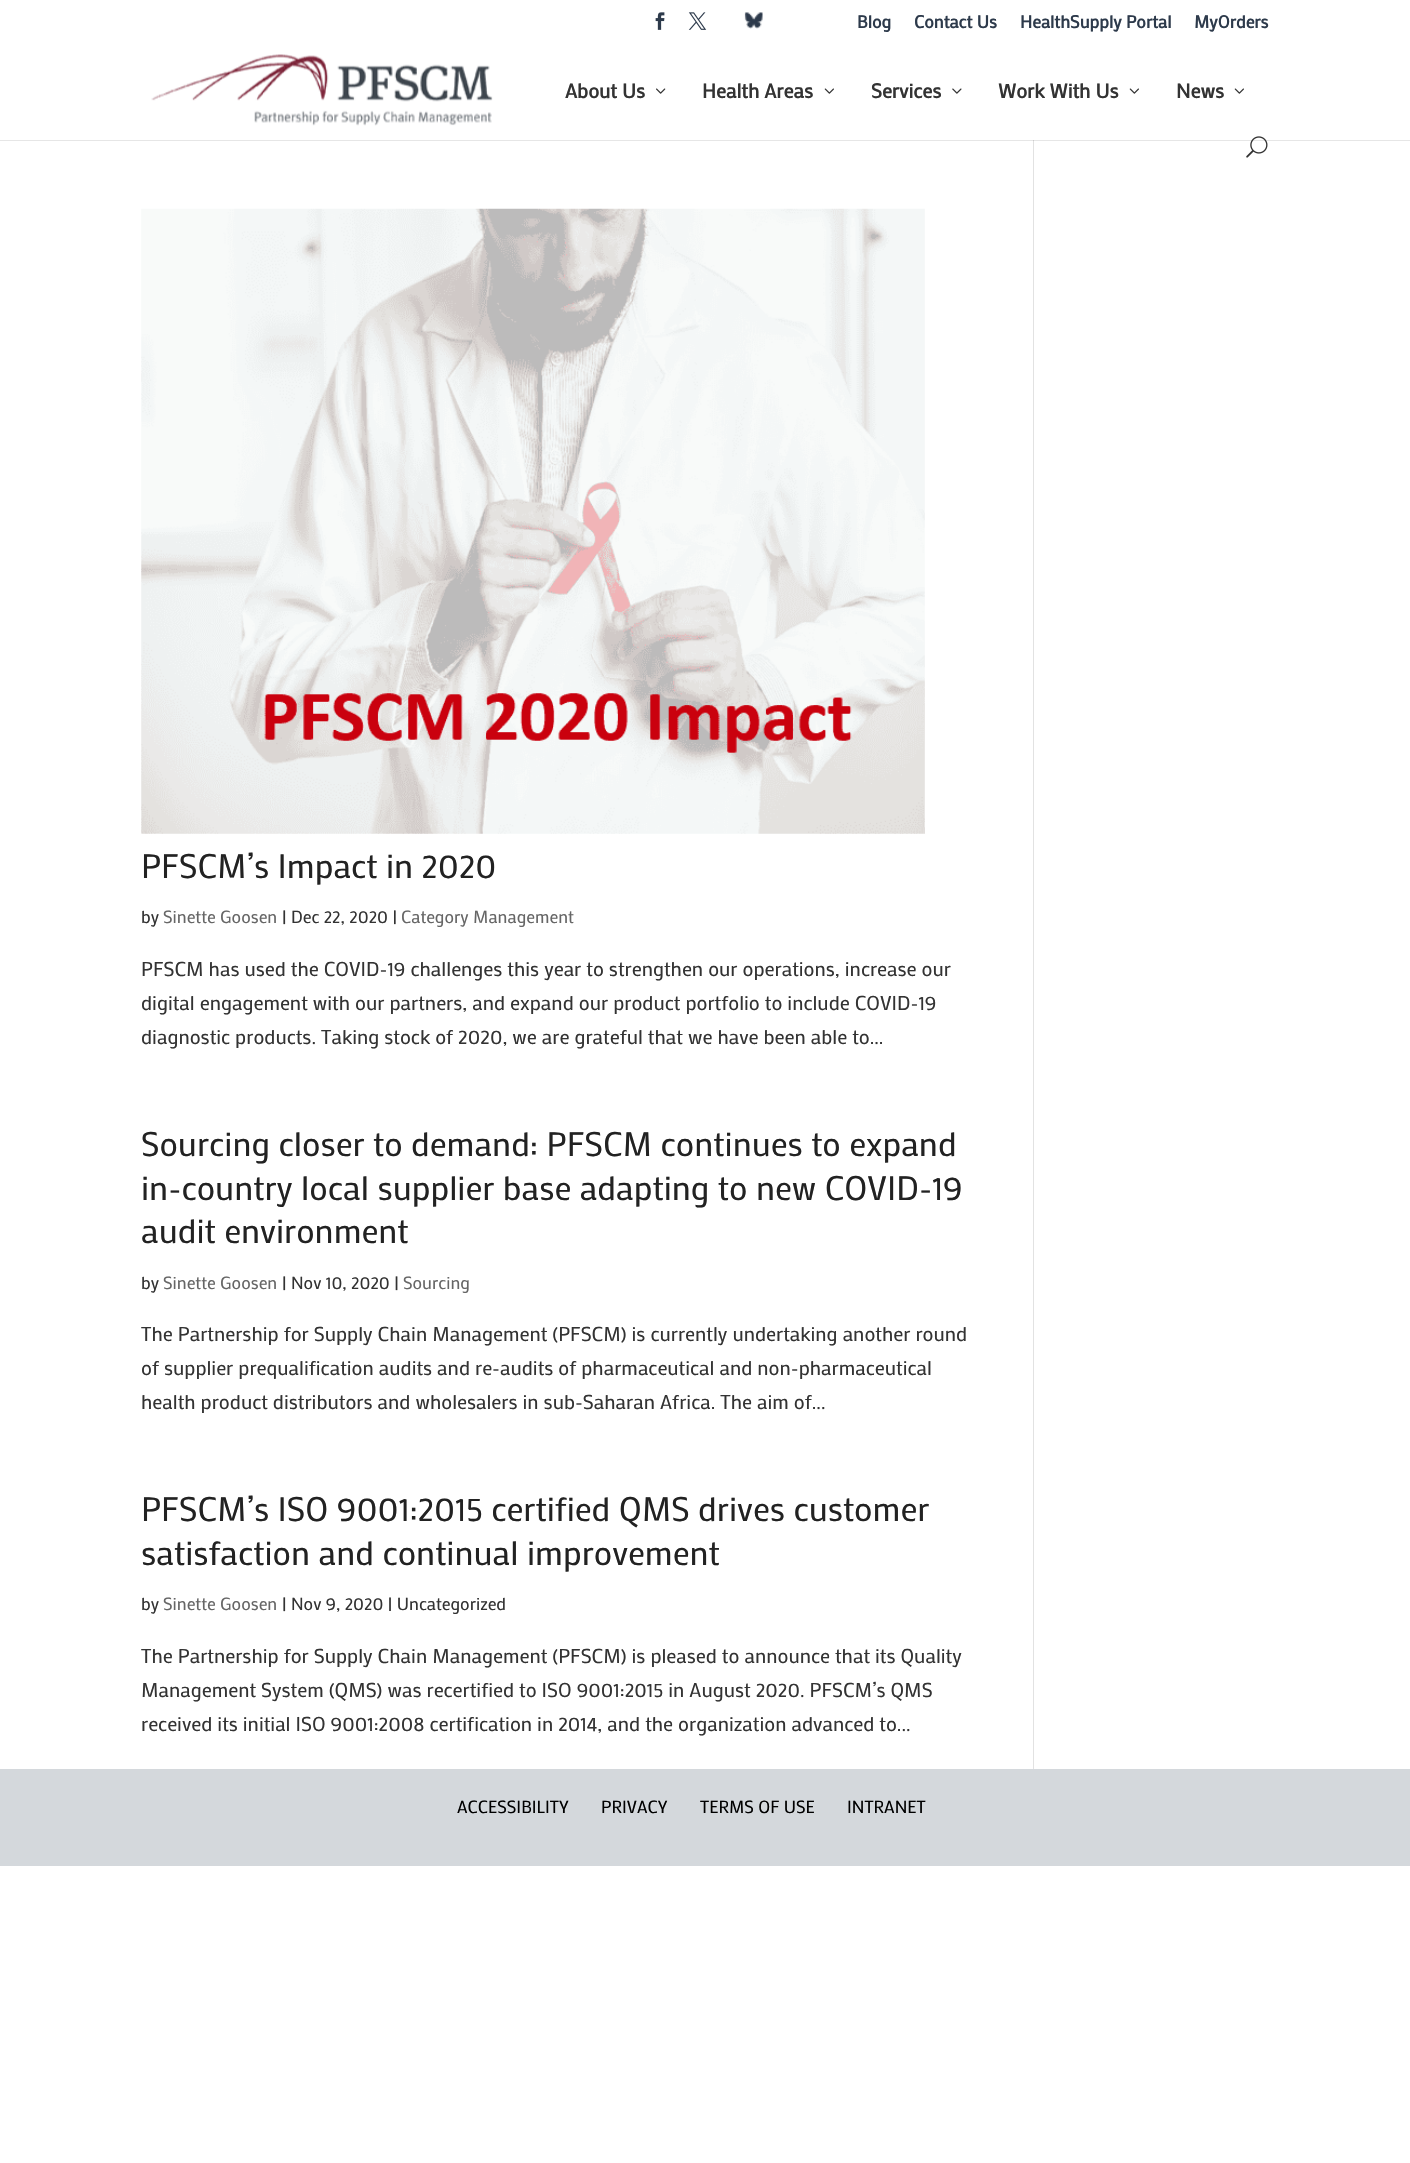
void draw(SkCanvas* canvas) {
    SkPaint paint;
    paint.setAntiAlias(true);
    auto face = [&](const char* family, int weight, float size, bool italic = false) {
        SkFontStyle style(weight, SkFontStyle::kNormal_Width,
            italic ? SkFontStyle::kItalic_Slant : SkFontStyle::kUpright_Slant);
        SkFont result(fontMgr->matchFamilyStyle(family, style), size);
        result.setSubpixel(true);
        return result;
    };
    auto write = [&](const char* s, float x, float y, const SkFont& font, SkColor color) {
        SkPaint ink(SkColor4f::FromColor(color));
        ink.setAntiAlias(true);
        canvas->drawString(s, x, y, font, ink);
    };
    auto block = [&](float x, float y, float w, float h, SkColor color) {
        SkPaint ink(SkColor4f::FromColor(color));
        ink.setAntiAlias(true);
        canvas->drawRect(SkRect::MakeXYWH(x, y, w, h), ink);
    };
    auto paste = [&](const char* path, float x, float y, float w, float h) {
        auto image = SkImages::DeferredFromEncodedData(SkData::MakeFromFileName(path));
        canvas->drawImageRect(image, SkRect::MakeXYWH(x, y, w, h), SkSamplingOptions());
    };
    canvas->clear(SK_ColorWHITE);
    block(0, 140, 1410, 1, SkColorSetRGB(230, 230, 230));
    paste("pic1.png", 655, 12, 10, 18);
    paste("pic2.png", 688, 12, 19, 18);
    paste("pic3.png", 744, 12, 19, 17);
    auto kFont1 = face("Mako", 700, 17.5f);
    write("Blog", 857, 28, kFont1, SkColorSetRGB(45, 58, 75));
    write("Contact Us", 914, 28, kFont1, SkColorSetRGB(45, 58, 75));
    write("HealthSupply Portal", 1020, 28, kFont1, SkColorSetRGB(45, 58, 75));
    write("MyOrders", 1194, 28, kFont1, SkColorSetRGB(45, 58, 75));
    block(1033, 136, 1, 1633, SkColorSetRGB(226, 226, 226));
    block(1033, 136, 1, 4, SK_ColorWHITE);
    paste("pic4.png", 151, 54, 342, 72);
    auto kFont2 = face("Mako", 700, 20);
    write("About Us", 565, 98, kFont2, SkColorSetRGB(51, 51, 51));
    paste("pic5.png", 656, 88, 10, 6);
    write("Health Areas", 702, 98, kFont2, SkColorSetRGB(51, 51, 51));
    paste("pic6.png", 824, 88, 10, 6);
    write("Services", 871, 98, kFont2, SkColorSetRGB(51, 51, 51));
    paste("pic7.png", 952, 88, 10, 6);
    write("Work With Us", 998, 98, kFont2, SkColorSetRGB(51, 51, 51));
    paste("pic6.png", 1129, 88, 10, 6);
    write("News", 1176, 98, kFont2, SkColorSetRGB(51, 51, 51));
    paste("pic6.png", 1234, 88, 10, 6);
    paste("pic8.png", 1246, 136, 22, 22);
    paste("pic9.png", 141, 208, 784, 626);
    auto kFont3 = face("Mako", 400, 33.75f);
    write("PFSCM’s Impact in 2020", 141, 878, kFont3, SkColorSetRGB(34, 34, 34));
    auto kFont4 = face("Mako", 400, 17.5f);
    write("by", 141, 923, kFont4, SkColorSetRGB(51, 51, 51));
    write("Sinette Goosen", 163, 923, kFont4, SkColorSetRGB(102, 102, 102));
    write("| Dec 22, 2020 |", 282, 923, kFont4, SkColorSetRGB(51, 51, 51));
    write("Category Management", 401, 923, kFont4, SkColorSetRGB(102, 102, 102));
    auto kFont5 = face("Mako", 400, 20);
    write("PFSCM has used the COVID-19 challenges this year to strengthen our operations, increase our", 141, 976, kFont5, SkColorSetRGB(51, 51, 51));
    write("digital engagement with our partners, and expand our product portfolio to include COVID-19", 141, 1010, kFont5, SkColorSetRGB(51, 51, 51));
    write("diagnostic products. Taking stock of 2020, we are grateful that we have been able to...", 141, 1044, kFont5, SkColorSetRGB(51, 51, 51));
    write("Sourcing closer to demand: PFSCM continues to expand", 141, 1156, kFont3, SkColorSetRGB(34, 34, 34));
    write("in-country local supplier base adapting to new COVID-19", 141, 1200, kFont3, SkColorSetRGB(34, 34, 34));
    write("audit environment", 141, 1243, kFont3, SkColorSetRGB(34, 34, 34));
    write("by", 141, 1289, kFont4, SkColorSetRGB(51, 51, 51));
    write("Sinette Goosen", 163, 1289, kFont4, SkColorSetRGB(102, 102, 102));
    write("| Nov 10, 2020 |", 282, 1289, kFont4, SkColorSetRGB(51, 51, 51));
    write("Sourcing", 403, 1289, kFont4, SkColorSetRGB(102, 102, 102));
    write("The Partnership for Supply Chain Management (PFSCM) is currently undertaking another round", 141, 1341, kFont5, SkColorSetRGB(51, 51, 51));
    write("of supplier prequalification audits and re-audits of pharmaceutical and non-pharmaceutical", 141, 1375, kFont5, SkColorSetRGB(51, 51, 51));
    write("health product distributors and wholesalers in sub-Saharan Africa. The aim of...", 141, 1409, kFont5, SkColorSetRGB(51, 51, 51));
    write("PFSCM’s ISO 9001:2015 certified QMS drives customer", 141, 1521, kFont3, SkColorSetRGB(34, 34, 34));
    write("satisfaction and continual improvement", 141, 1565, kFont3, SkColorSetRGB(34, 34, 34));
    write("by", 141, 1610, kFont4, SkColorSetRGB(51, 51, 51));
    write("Sinette Goosen", 163, 1610, kFont4, SkColorSetRGB(102, 102, 102));
    write("| Nov 9, 2020 | Uncategorized", 282, 1610, kFont4, SkColorSetRGB(51, 51, 51));
    write("The Partnership for Supply Chain Management (PFSCM) is pleased to announce that its Quality", 141, 1663, kFont5, SkColorSetRGB(51, 51, 51));
    write("Management System (QMS) was recertified to ISO 9001:2015 in August 2020. PFSCM’s QMS", 141, 1697, kFont5, SkColorSetRGB(51, 51, 51));
    write("received its initial ISO 9001:2008 certification in 2014, and the organization advanced to...", 141, 1731, kFont5, SkColorSetRGB(51, 51, 51));
    block(1033, 140, 1, 1, SkColorSetRGB(203, 203, 203));
    block(0, 1769, 1410, 97, SkColorSetRGB(212, 216, 220));
    write("ACCESSIBILITY", 457, 1813, kFont4, SK_ColorBLACK);
    write("PRIVACY", 601, 1813, kFont4, SK_ColorBLACK);
    write("TERMS OF USE", 700, 1813, kFont4, SK_ColorBLACK);
    write("INTRANET", 847, 1813, kFont4, SK_ColorBLACK);
}
